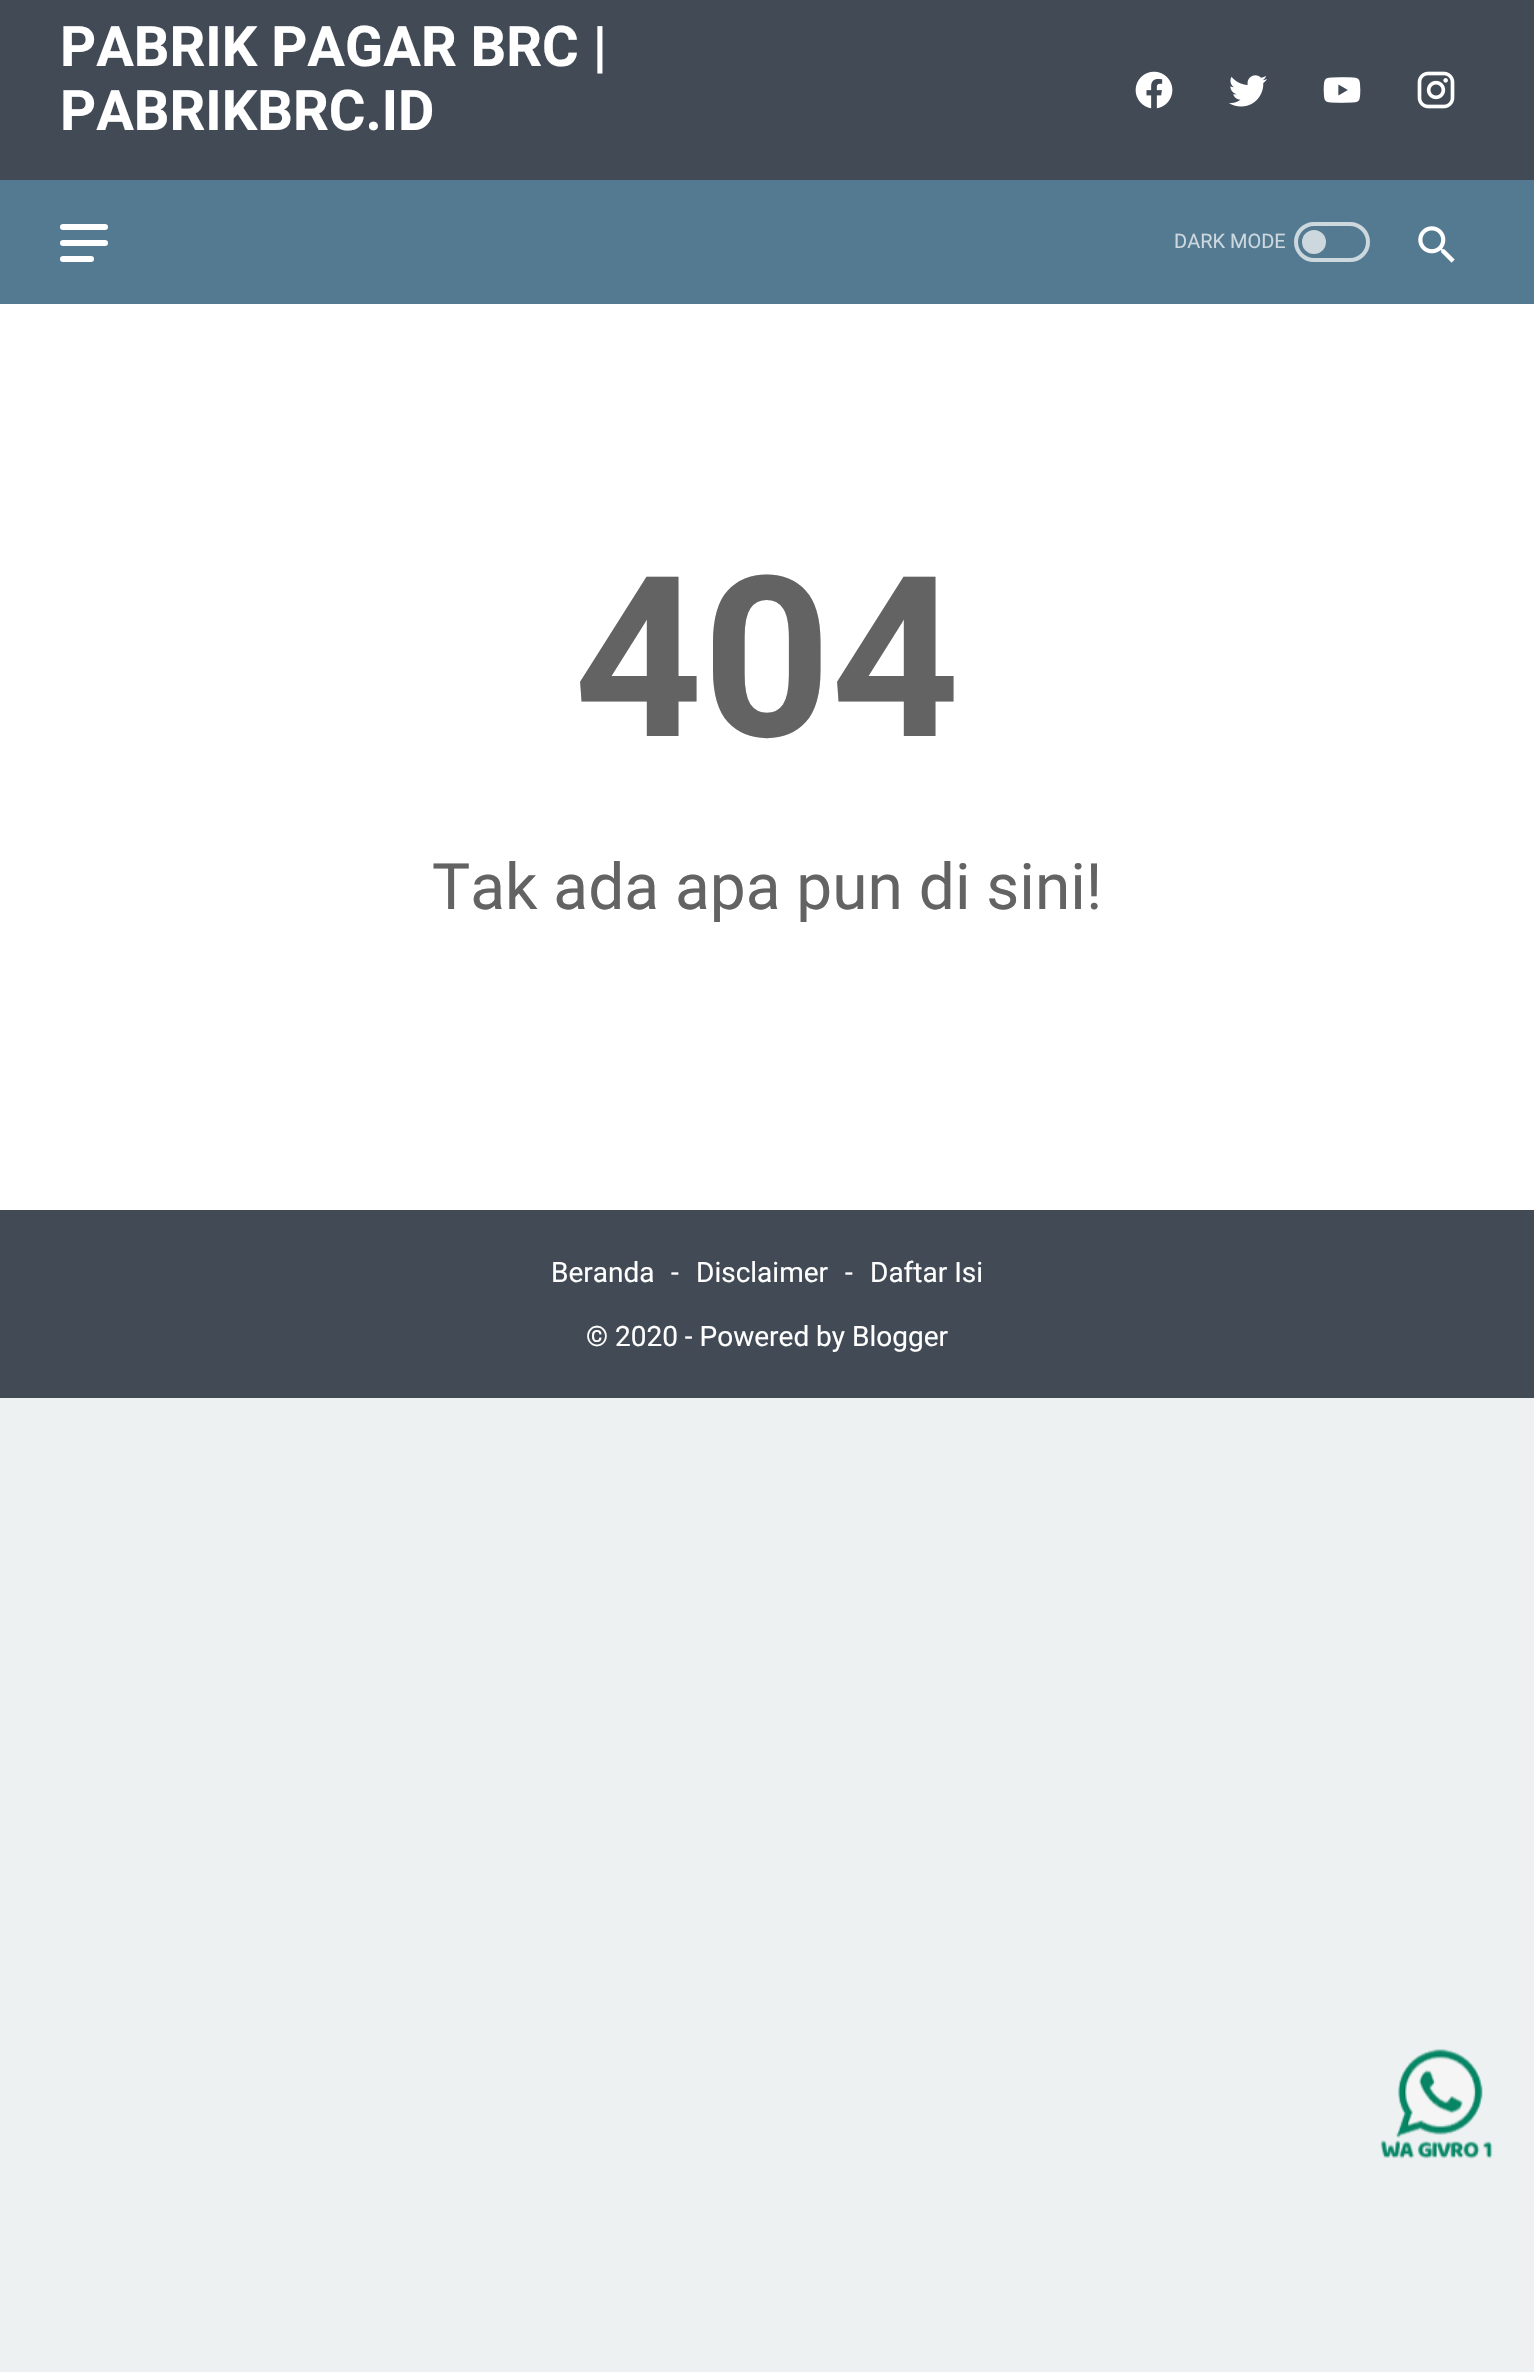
void draw(SkCanvas* canvas) {
    SkPaint paint;
    paint.setAntiAlias(true);
    auto face = [&](const char* family, int weight, float size, bool italic = false) {
        SkFontStyle style(weight, SkFontStyle::kNormal_Width,
            italic ? SkFontStyle::kItalic_Slant : SkFontStyle::kUpright_Slant);
        SkFont result(fontMgr->matchFamilyStyle(family, style), size);
        result.setSubpixel(true);
        return result;
    };
    auto write = [&](const char* s, float x, float y, const SkFont& font, SkColor color) {
        SkPaint ink(SkColor4f::FromColor(color));
        ink.setAntiAlias(true);
        canvas->drawString(s, x, y, font, ink);
    };
    auto block = [&](float x, float y, float w, float h, SkColor color) {
        SkPaint ink(SkColor4f::FromColor(color));
        ink.setAntiAlias(true);
        canvas->drawRect(SkRect::MakeXYWH(x, y, w, h), ink);
    };
    auto card = [&](float x, float y, float w, float h, float radius, SkColor color) {
        SkPaint ink(SkColor4f::FromColor(color));
        ink.setAntiAlias(true);
        canvas->drawRoundRect(SkRect::MakeXYWH(x, y, w, h), radius, radius, ink);
    };
    auto paste = [&](const char* path, float x, float y, float w, float h) {
        auto image = SkImages::DeferredFromEncodedData(SkData::MakeFromFileName(path));
        canvas->drawImageRect(image, SkRect::MakeXYWH(x, y, w, h), SkSamplingOptions());
    };
    canvas->clear(SkColorSetRGB(237, 241, 242));
    block(0, 0, 1534, 180, SkColorSetRGB(66, 74, 86));
    auto kFont1 = face("Roboto", 700, 56);
    write("PABRIK PAGAR BRC |", 60, 66, kFont1, SK_ColorWHITE);
    write("PABRIKBRC.ID", 60, 130, kFont1, SK_ColorWHITE);
    paste("pic1.png", 1135, 71, 38, 38);
    paste("pic2.png", 1229, 75, 38, 32);
    paste("pic3.png", 1323, 77, 38, 26);
    paste("pic4.png", 1417, 71, 38, 38);
    block(0, 180, 1534, 124, SkColorSetRGB(84, 122, 146));
    card(60, 224, 48, 6, 3, SK_ColorWHITE);
    card(60, 240, 48, 6, 3, SK_ColorWHITE);
    card(60, 256, 34, 6, 3, SK_ColorWHITE);
    auto kFont2 = face("Roboto", 400, 20);
    write("DARK MODE", 1174, 248, kFont2, SkColorSetRGB(204, 215, 222));
    paint.setStyle(SkPaint::kStroke_Style);
    paint.setStrokeWidth(4);
    paint.setColor(SkColorSetRGB(204, 215, 222));
    canvas->drawRoundRect(SkRect::MakeXYWH(1296, 224, 72, 36), 18, 18, paint);
    paint.setStyle(SkPaint::kFill_Style);
    canvas->drawCircle(1314, 242, 12, paint);
    paste("pic5.png", 1418, 226, 37, 37);
    block(0, 304, 1534, 906, SK_ColorWHITE);
    auto kFont3 = face("Roboto", 700, 224);
    write("404", 574, 736, kFont3, SkColorSetRGB(99, 99, 99));
    auto kFont4 = face("Roboto", 400, 64);
    write("Tak ada apa pun di sini!", 432, 909, kFont4, SkColorSetRGB(99, 99, 99));
    block(0, 1210, 1534, 188, SkColorSetRGB(66, 74, 86));
    auto kFont5 = face("Roboto", 400, 28);
    write("Beranda", 551, 1282, kFont5, SK_ColorWHITE);
    write("-", 671, 1282, kFont5, SK_ColorWHITE);
    write("Disclaimer", 696, 1282, kFont5, SK_ColorWHITE);
    write("-", 845, 1282, kFont5, SK_ColorWHITE);
    write("Daftar Isi", 870, 1282, kFont5, SK_ColorWHITE);
    write("© 2020 - Powered by Blogger", 586, 1346, kFont5, SK_ColorWHITE);
    paste("pic6.png", 1380, 2049, 113, 110);
}
